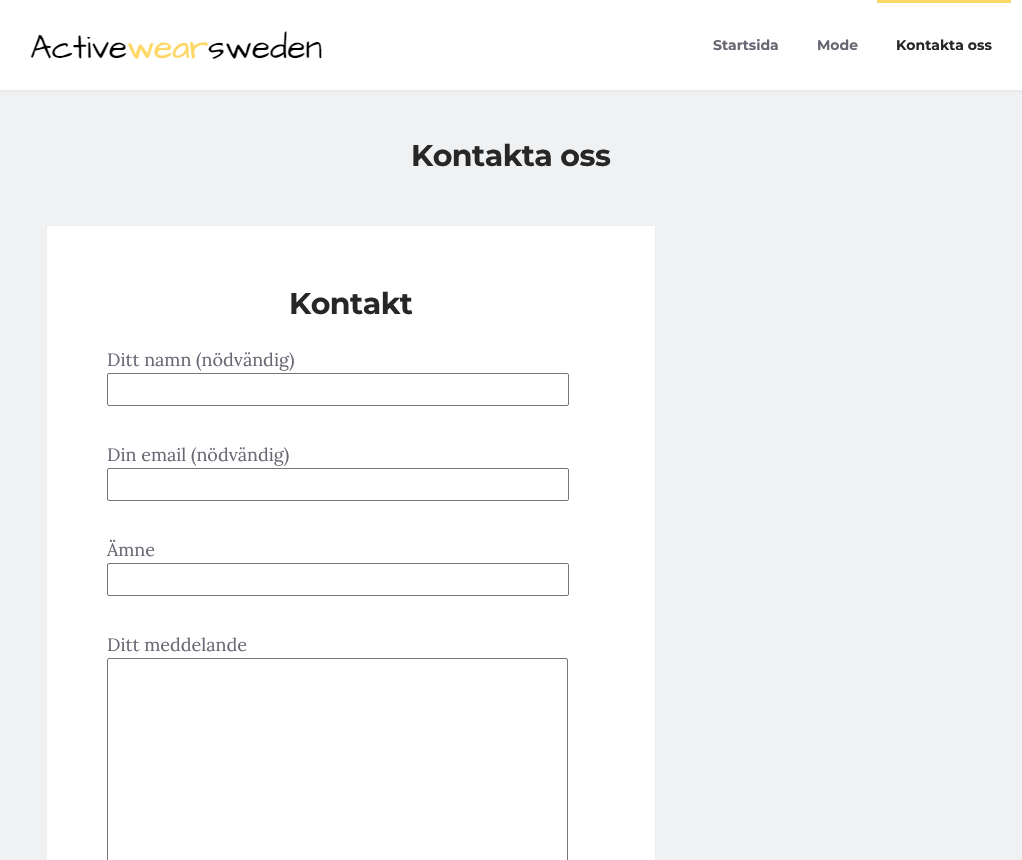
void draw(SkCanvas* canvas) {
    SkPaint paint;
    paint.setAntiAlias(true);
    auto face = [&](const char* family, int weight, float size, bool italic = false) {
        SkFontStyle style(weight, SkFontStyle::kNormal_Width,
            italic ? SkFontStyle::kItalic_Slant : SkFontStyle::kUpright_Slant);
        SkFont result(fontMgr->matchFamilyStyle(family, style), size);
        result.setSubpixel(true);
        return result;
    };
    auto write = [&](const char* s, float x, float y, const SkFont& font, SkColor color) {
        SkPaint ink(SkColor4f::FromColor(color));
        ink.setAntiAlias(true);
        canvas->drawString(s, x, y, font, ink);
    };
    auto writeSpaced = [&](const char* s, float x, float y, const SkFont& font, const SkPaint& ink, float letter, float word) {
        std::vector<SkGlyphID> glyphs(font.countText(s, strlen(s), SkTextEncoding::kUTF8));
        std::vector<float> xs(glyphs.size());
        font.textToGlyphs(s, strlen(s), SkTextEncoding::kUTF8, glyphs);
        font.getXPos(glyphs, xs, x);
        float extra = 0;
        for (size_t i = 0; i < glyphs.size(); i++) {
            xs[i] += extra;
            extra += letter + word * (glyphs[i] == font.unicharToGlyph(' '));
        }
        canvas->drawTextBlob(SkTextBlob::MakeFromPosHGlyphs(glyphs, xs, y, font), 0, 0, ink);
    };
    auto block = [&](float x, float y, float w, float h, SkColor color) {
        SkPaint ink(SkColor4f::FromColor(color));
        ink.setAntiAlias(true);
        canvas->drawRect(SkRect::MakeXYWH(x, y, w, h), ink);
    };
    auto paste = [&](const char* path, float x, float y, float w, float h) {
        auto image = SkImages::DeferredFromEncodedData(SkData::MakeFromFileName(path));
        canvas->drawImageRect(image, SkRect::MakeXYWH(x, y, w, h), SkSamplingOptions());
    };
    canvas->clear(SkColorSetRGB(239, 241, 243));
    paint.setColor(SkColorSetARGB(13, 0, 0, 0));
    paint.setMaskFilter(SkMaskFilter::MakeBlur(kNormal_SkBlurStyle, 1.5f));
    canvas->drawRect(SkRect::MakeXYWH(0, 1, 1022, 90), paint);
    paint.setMaskFilter(nullptr);
    block(0, 0, 1022, 90, SK_ColorWHITE);
    paste("pic1.png", 30, 31, 292, 28);
    auto kFont1 = face("Montserrat", 700, 14);
    write("Startsida", 713, 50, kFont1, SkColorSetRGB(105, 103, 115));
    write("Mode", 817, 50, kFont1, SkColorSetRGB(105, 103, 115));
    block(877, 0, 134, 3, SkColorSetRGB(254, 215, 102));
    write("Kontakta oss", 896, 50, kFont1, SkColorSetRGB(39, 39, 39));
    auto kFont2 = face("Montserrat", 700, 30);
    paint.setColor(SkColorSetRGB(39, 39, 39));
    writeSpaced("Kontakta oss", 411, 166, kFont2, paint, -0.5f, 0);
    paint.setColor(SK_ColorWHITE);
    canvas->drawRoundRect(SkRect::MakeXYWH(46.5f, 225.5f, 609, 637), 1.5f, 1.5f, paint);
    paint.setStyle(SkPaint::kStroke_Style);
    paint.setStrokeWidth(1);
    paint.setColor(SkColorSetRGB(238, 238, 238));
    canvas->drawRoundRect(SkRect::MakeXYWH(46.5f, 225.5f, 609, 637), 1.5f, 1.5f, paint);
    paint.setStyle(SkPaint::kFill_Style);
    paint.setColor(SkColorSetRGB(39, 39, 39));
    writeSpaced("Kontakt", 289, 314, kFont2, paint, -0.5f, 0);
    auto kFont3 = face("Lora", 400, 18);
    write("Ditt namn (nödvändig)", 107, 366, kFont3, SkColorSetRGB(105, 103, 115));
    paint.setStyle(SkPaint::kStroke_Style);
    paint.setColor(SkColorSetRGB(118, 118, 118));
    canvas->drawRoundRect(SkRect::MakeXYWH(107.5f, 373.5f, 461, 32), 1.5f, 1.5f, paint);
    write("Din email (nödvändig)", 107, 461, kFont3, SkColorSetRGB(105, 103, 115));
    canvas->drawRoundRect(SkRect::MakeXYWH(107.5f, 468.5f, 461, 32), 1.5f, 1.5f, paint);
    write("Ämne", 107, 556, kFont3, SkColorSetRGB(105, 103, 115));
    canvas->drawRoundRect(SkRect::MakeXYWH(107.5f, 563.5f, 461, 32), 1.5f, 1.5f, paint);
    write("Ditt meddelande", 107, 651, kFont3, SkColorSetRGB(105, 103, 115));
    canvas->drawRoundRect(SkRect::MakeXYWH(107.5f, 658.5f, 460, 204), 1.5f, 1.5f, paint);
}
